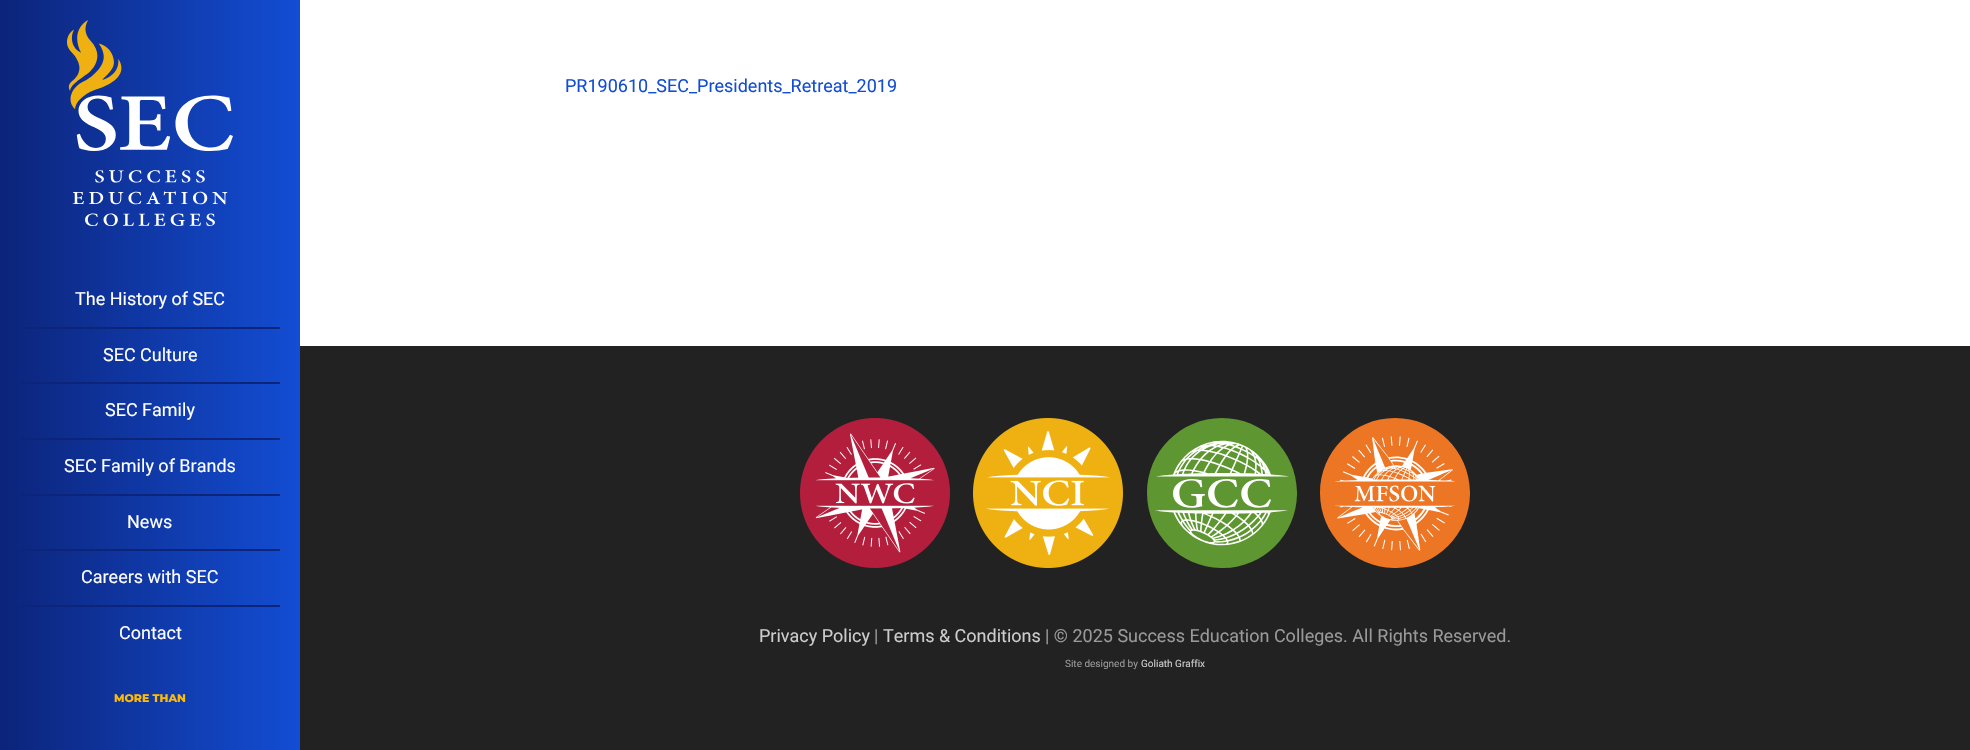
void draw(SkCanvas* canvas) {
    SkPaint paint;
    paint.setAntiAlias(true);
    auto face = [&](const char* family, int weight, float size, bool italic = false) {
        SkFontStyle style(weight, SkFontStyle::kNormal_Width,
            italic ? SkFontStyle::kItalic_Slant : SkFontStyle::kUpright_Slant);
        SkFont result(fontMgr->matchFamilyStyle(family, style), size);
        result.setSubpixel(true);
        return result;
    };
    auto write = [&](const char* s, float x, float y, const SkFont& font, SkColor color) {
        SkPaint ink(SkColor4f::FromColor(color));
        ink.setAntiAlias(true);
        canvas->drawString(s, x, y, font, ink);
    };
    auto block = [&](float x, float y, float w, float h, SkColor color) {
        SkPaint ink(SkColor4f::FromColor(color));
        ink.setAntiAlias(true);
        canvas->drawRect(SkRect::MakeXYWH(x, y, w, h), ink);
    };
    auto paste = [&](const char* path, float x, float y, float w, float h) {
        auto image = SkImages::DeferredFromEncodedData(SkData::MakeFromFileName(path));
        canvas->drawImageRect(image, SkRect::MakeXYWH(x, y, w, h), SkSamplingOptions());
    };
    canvas->clear(SK_ColorWHITE);
    auto kFont1 = face("Roboto", 400, 18);
    write("PR190610_SEC_Presidents_Retreat_2019", 565, 92, kFont1, SkColorSetRGB(19, 77, 212));
    {
        const SkColor colors[] = {SkColorSetRGB(19, 77, 212), SkColorSetRGB(12, 36, 122)};
        const float stops[] = {0, 1};
        const SkPoint ends[] = {{300, 503}, {0, 503}};
        paint.setShader(SkGradientShader::MakeLinear(ends, colors, stops, 2, SkTileMode::kClamp));
        paint.setAlpha(255);
    }
    canvas->drawRect(SkRect::MakeXYWH(0, 0, 300, 750), paint);
    paste("pic1.png", 67, 20, 166, 206);
    write("The History of SEC", 75, 305, kFont1, SK_ColorWHITE);
    block(20, 327, 260, 2, SkColorSetRGB(12, 36, 122));
    write("SEC Culture", 103, 361, kFont1, SK_ColorWHITE);
    block(20, 382, 260, 2, SkColorSetRGB(12, 36, 122));
    write("SEC Family", 105, 416, kFont1, SK_ColorWHITE);
    block(20, 438, 260, 2, SkColorSetRGB(12, 36, 122));
    write("SEC Family of Brands", 64, 472, kFont1, SK_ColorWHITE);
    block(20, 494, 260, 2, SkColorSetRGB(12, 36, 122));
    write("News", 127, 528, kFont1, SK_ColorWHITE);
    block(20, 549, 260, 2, SkColorSetRGB(12, 36, 122));
    write("Careers with SEC", 81, 583, kFont1, SK_ColorWHITE);
    block(20, 605, 260, 2, SkColorSetRGB(12, 36, 122));
    write("Contact", 119, 639, kFont1, SK_ColorWHITE);
    auto kFont2 = face("Montserrat", 800, 11);
    write("MORE THAN", 114, 702, kFont2, SkColorSetRGB(255, 187, 0));
    block(300, 346, 1670, 404, SkColorSetRGB(34, 34, 34));
    paste("pic2.png", 800, 418, 150, 150);
    paste("pic3.png", 973, 418, 150, 150);
    paste("pic4.png", 1147, 418, 150, 150);
    paste("pic5.png", 1320, 418, 150, 150);
    write("Privacy Policy", 759, 642, kFont1, SkColorSetRGB(204, 204, 204));
    write("|", 874, 642, kFont1, SkColorSetRGB(153, 153, 153));
    write("Terms & Conditions", 883, 642, kFont1, SkColorSetRGB(204, 204, 204));
    write("| © 2025 Success Education Colleges. All Rights Reserved.", 1045, 642, kFont1, SkColorSetRGB(153, 153, 153));
    auto kFont3 = face("Roboto", 400, 10);
    write("Site designed by", 1065, 667, kFont3, SkColorSetRGB(153, 153, 153));
    write("Goliath Graffix", 1141, 667, kFont3, SkColorSetRGB(204, 204, 204));
}
